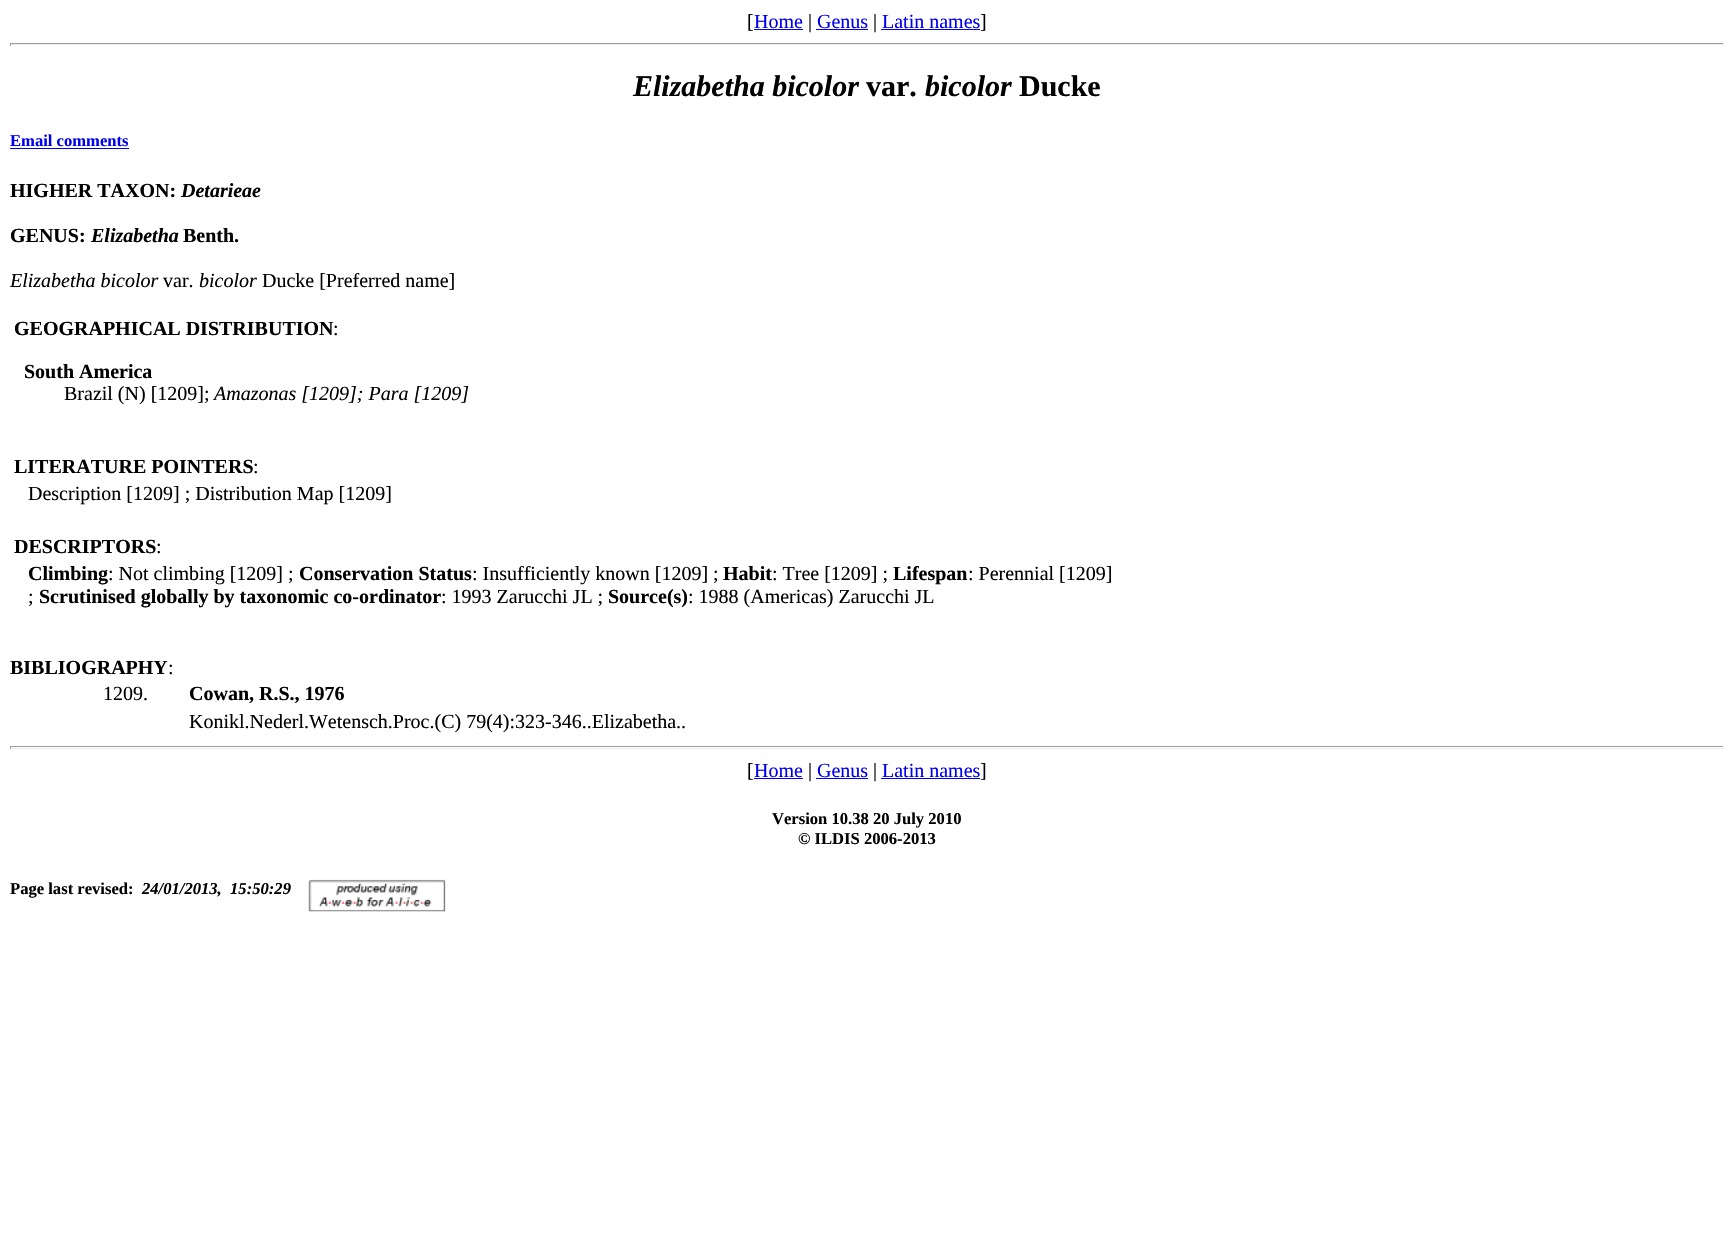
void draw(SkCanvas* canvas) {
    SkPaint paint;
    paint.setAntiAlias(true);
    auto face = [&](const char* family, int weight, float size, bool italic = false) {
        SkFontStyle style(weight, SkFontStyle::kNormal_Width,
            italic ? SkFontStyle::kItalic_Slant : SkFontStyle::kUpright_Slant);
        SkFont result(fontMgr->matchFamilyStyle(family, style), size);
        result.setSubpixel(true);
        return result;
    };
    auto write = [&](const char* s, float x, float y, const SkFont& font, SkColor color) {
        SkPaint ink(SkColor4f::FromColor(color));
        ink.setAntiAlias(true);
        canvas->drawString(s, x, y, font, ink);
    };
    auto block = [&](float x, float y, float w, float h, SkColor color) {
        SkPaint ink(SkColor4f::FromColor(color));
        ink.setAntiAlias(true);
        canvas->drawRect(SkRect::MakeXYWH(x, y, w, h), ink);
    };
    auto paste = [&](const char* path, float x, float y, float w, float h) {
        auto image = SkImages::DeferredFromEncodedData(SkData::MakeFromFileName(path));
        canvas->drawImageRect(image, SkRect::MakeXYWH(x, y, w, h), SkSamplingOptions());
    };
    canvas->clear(SK_ColorWHITE);
    auto kFont1 = face("Liberation Serif", 400, 20);
    write("[", 747, 28, kFont1, SK_ColorBLACK);
    write("Home", 754, 28, kFont1, SkColorSetRGB(0, 0, 238));
    block(754, 29, 49, 1, SkColorSetRGB(0, 0, 238));
    write("|", 808, 28, kFont1, SK_ColorBLACK);
    write("Genus", 817, 28, kFont1, SkColorSetRGB(0, 0, 238));
    block(816, 29, 52, 1, SkColorSetRGB(0, 0, 238));
    write("|", 873, 28, kFont1, SK_ColorBLACK);
    write("Latin names", 882, 28, kFont1, SkColorSetRGB(0, 0, 238));
    block(881, 29, 99, 1, SkColorSetRGB(0, 0, 238));
    write("]", 980, 28, kFont1, SK_ColorBLACK);
    block(10, 43, 1714, 1, SkColorSetRGB(159, 159, 159));
    block(1723, 43, 1, 3, SkColorSetRGB(238, 238, 238));
    block(10, 44, 1714, 1, SkColorSetRGB(238, 238, 238));
    block(10, 43, 1, 3, SkColorSetRGB(159, 159, 159));
    auto kFont2 = face("Liberation Serif", 700, 30, true);
    write("Elizabetha bicolor", 633, 96, kFont2, SK_ColorBLACK);
    auto kFont3 = face("Liberation Serif", 700, 30);
    write("var.", 866, 96, kFont3, SK_ColorBLACK);
    write("bicolor", 925, 96, kFont2, SK_ColorBLACK);
    write("Ducke", 1019, 96, kFont3, SK_ColorBLACK);
    auto kFont4 = face("Liberation Serif", 700, 16.6f);
    write("Email comments", 10, 146, kFont4, SkColorSetRGB(0, 0, 238));
    block(10, 148, 119, 1, SkColorSetRGB(0, 0, 238));
    auto kFont5 = face("Liberation Serif", 700, 20);
    write("HIGHER TAXON:", 10, 197, kFont5, SK_ColorBLACK);
    auto kFont6 = face("Liberation Serif", 700, 20, true);
    write("Detarieae", 181, 197, kFont6, SK_ColorBLACK);
    write("GENUS:", 10, 242, kFont5, SK_ColorBLACK);
    write("Elizabetha", 91, 242, kFont6, SK_ColorBLACK);
    write("Benth.", 183, 242, kFont5, SK_ColorBLACK);
    auto kFont7 = face("Liberation Serif", 400, 20, true);
    write("Elizabetha bicolor", 10, 287, kFont7, SK_ColorBLACK);
    write("var.", 163, 287, kFont1, SK_ColorBLACK);
    write("bicolor", 199, 287, kFont7, SK_ColorBLACK);
    write("Ducke [Preferred name]", 262, 287, kFont1, SK_ColorBLACK);
    write("GEOGRAPHICAL DISTRIBUTION", 14, 335, kFont5, SK_ColorBLACK);
    write(":", 333, 335, kFont1, SK_ColorBLACK);
    write("South America", 24, 378, kFont5, SK_ColorBLACK);
    write("Brazil (N) [1209];", 64, 400, kFont1, SK_ColorBLACK);
    write("Amazonas [1209]; Para [1209]", 214, 400, kFont7, SK_ColorBLACK);
    write("LITERATURE POINTERS", 14, 473, kFont5, SK_ColorBLACK);
    write(":", 253, 473, kFont1, SK_ColorBLACK);
    write("Description [1209] ; Distribution Map [1209]", 28, 500, kFont1, SK_ColorBLACK);
    write("DESCRIPTORS", 14, 553, kFont5, SK_ColorBLACK);
    write(":", 156, 553, kFont1, SK_ColorBLACK);
    write("Climbing", 28, 580, kFont5, SK_ColorBLACK);
    write(": Not climbing [1209] ;", 108, 580, kFont1, SK_ColorBLACK);
    write("Conservation Status", 299, 580, kFont5, SK_ColorBLACK);
    write(": Insufficiently known [1209] ;", 472, 580, kFont1, SK_ColorBLACK);
    write("Habit", 723, 580, kFont5, SK_ColorBLACK);
    write(": Tree [1209] ;", 772, 580, kFont1, SK_ColorBLACK);
    write("Lifespan", 893, 580, kFont5, SK_ColorBLACK);
    write(": Perennial [1209]", 968, 580, kFont1, SK_ColorBLACK);
    write(";", 28, 603, kFont1, SK_ColorBLACK);
    write("Scrutinised globally by taxonomic co-ordinator", 39, 603, kFont5, SK_ColorBLACK);
    write(": 1993 Zarucchi JL ;", 441, 603, kFont1, SK_ColorBLACK);
    write("Source(s)", 608, 603, kFont5, SK_ColorBLACK);
    write(": 1988 (Americas) Zarucchi JL", 688, 603, kFont1, SK_ColorBLACK);
    write("BIBLIOGRAPHY", 10, 674, kFont5, SK_ColorBLACK);
    write(":", 168, 674, kFont1, SK_ColorBLACK);
    write("1209.", 103, 700, kFont1, SK_ColorBLACK);
    write("Cowan, R.S., 1976", 189, 700, kFont5, SK_ColorBLACK);
    write("Konikl.Nederl.Wetensch.Proc.(C) 79(4):323-346..Elizabetha..", 189, 728, kFont1, SK_ColorBLACK);
    block(10, 746, 1714, 1, SkColorSetRGB(159, 159, 159));
    block(1723, 746, 1, 3, SkColorSetRGB(238, 238, 238));
    block(10, 748, 1714, 1, SkColorSetRGB(238, 238, 238));
    block(10, 746, 1, 3, SkColorSetRGB(159, 159, 159));
    write("[", 747, 777, kFont1, SK_ColorBLACK);
    write("Home", 754, 777, kFont1, SkColorSetRGB(0, 0, 238));
    block(754, 778, 49, 1, SkColorSetRGB(0, 0, 238));
    write("|", 808, 777, kFont1, SK_ColorBLACK);
    write("Genus", 817, 777, kFont1, SkColorSetRGB(0, 0, 238));
    block(816, 778, 52, 1, SkColorSetRGB(0, 0, 238));
    write("|", 873, 777, kFont1, SK_ColorBLACK);
    write("Latin names", 882, 777, kFont1, SkColorSetRGB(0, 0, 238));
    block(881, 778, 99, 1, SkColorSetRGB(0, 0, 238));
    write("]", 980, 777, kFont1, SK_ColorBLACK);
    write("Version 10.38 20 July 2010", 772, 824, kFont4, SK_ColorBLACK);
    write("© ILDIS 2006-2013", 798, 844, kFont4, SK_ColorBLACK);
    write("Page last revised:", 10, 894, kFont4, SK_ColorBLACK);
    auto kFont8 = face("Liberation Serif", 700, 16.6f, true);
    write("24/01/2013,  15:50:29", 142, 894, kFont8, SK_ColorBLACK);
    paste("pic1.png", 308, 879, 138, 33);
}
